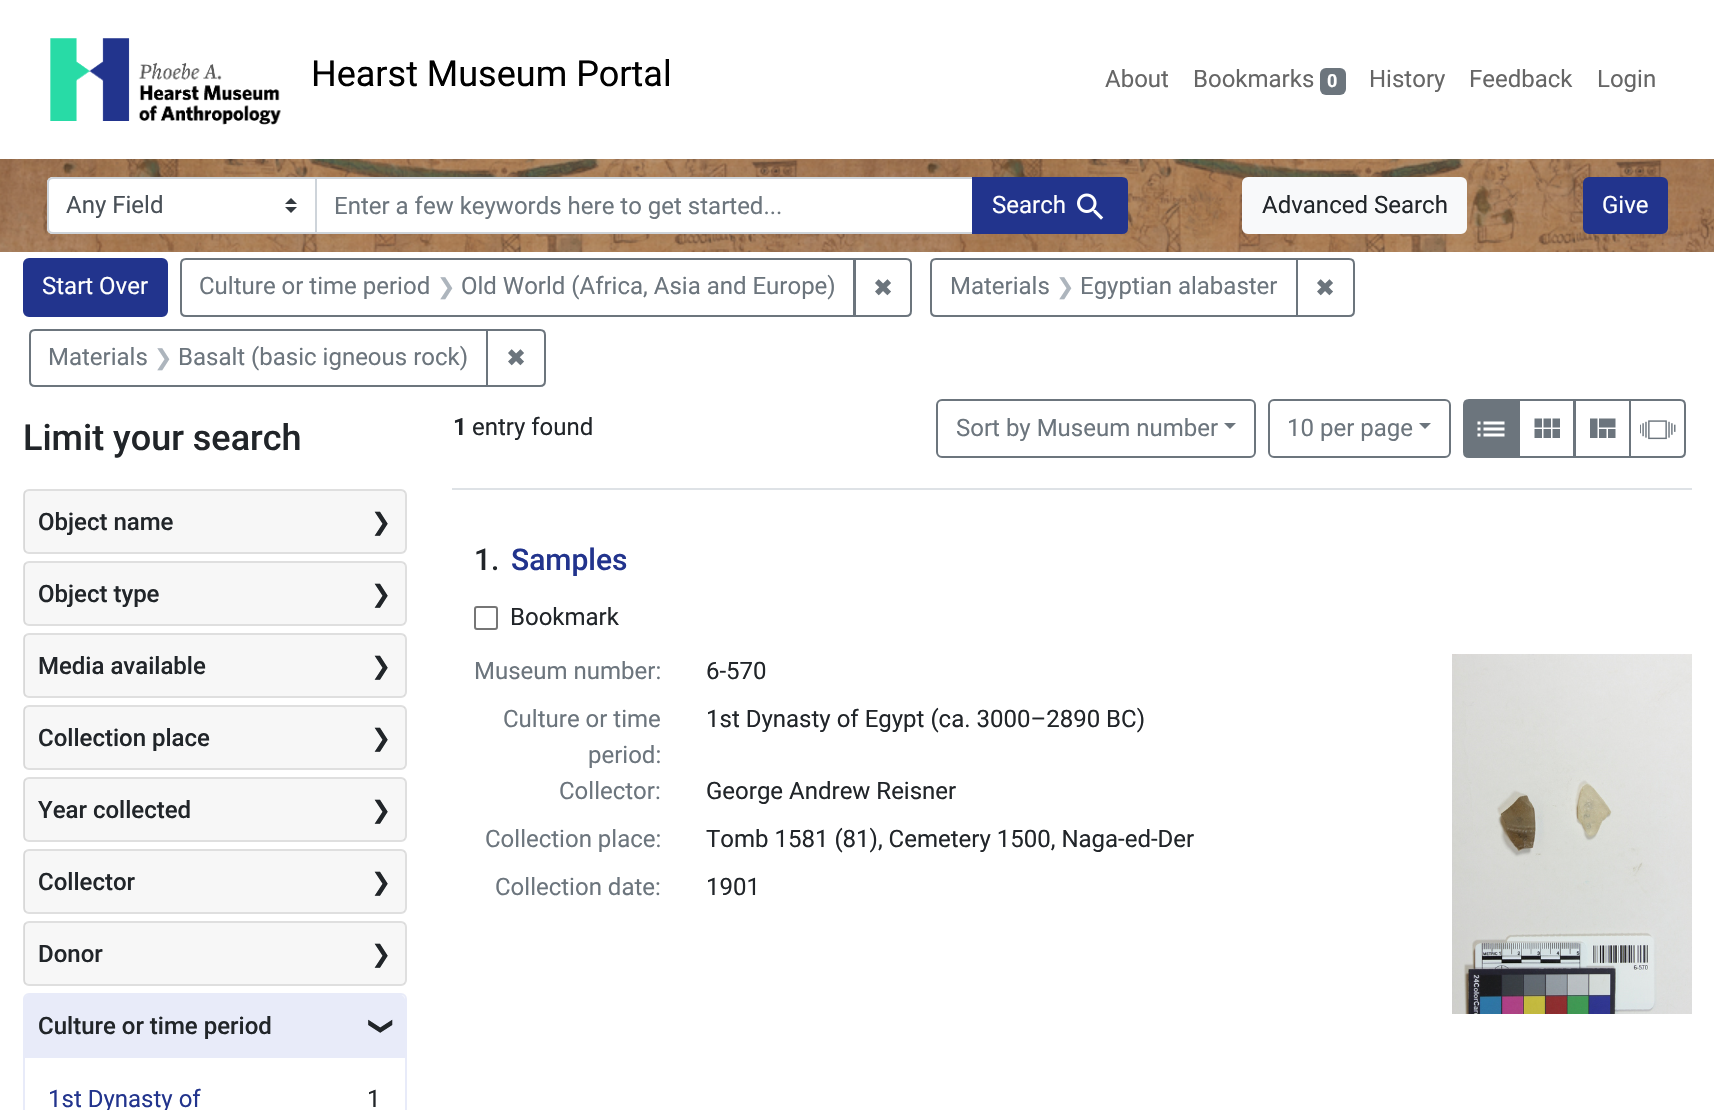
void draw(SkCanvas* canvas) {
    SkPaint paint;
    paint.setAntiAlias(true);
    auto face = [&](const char* family, int weight, float size, bool italic = false) {
        SkFontStyle style(weight, SkFontStyle::kNormal_Width,
            italic ? SkFontStyle::kItalic_Slant : SkFontStyle::kUpright_Slant);
        SkFont result(fontMgr->matchFamilyStyle(family, style), size);
        result.setSubpixel(true);
        return result;
    };
    auto write = [&](const char* s, float x, float y, const SkFont& font, SkColor color) {
        SkPaint ink(SkColor4f::FromColor(color));
        ink.setAntiAlias(true);
        canvas->drawString(s, x, y, font, ink);
    };
    auto block = [&](float x, float y, float w, float h, SkColor color) {
        SkPaint ink(SkColor4f::FromColor(color));
        ink.setAntiAlias(true);
        canvas->drawRect(SkRect::MakeXYWH(x, y, w, h), ink);
    };
    auto card = [&](float x, float y, float w, float h, float radius, SkColor color) {
        SkPaint ink(SkColor4f::FromColor(color));
        ink.setAntiAlias(true);
        canvas->drawRoundRect(SkRect::MakeXYWH(x, y, w, h), radius, radius, ink);
    };
    auto paste = [&](const char* path, float x, float y, float w, float h) {
        auto image = SkImages::DeferredFromEncodedData(SkData::MakeFromFileName(path));
        canvas->drawImageRect(image, SkRect::MakeXYWH(x, y, w, h), SkSamplingOptions());
    };
    canvas->clear(SK_ColorWHITE);
    paste("pic1.png", 50, 38, 231, 87);
    auto kFont1 = face("Roboto", 400, 36);
    write("Hearst Museum Portal", 311, 86, kFont1, SK_ColorBLACK);
    auto kFont2 = face("Roboto", 400, 24);
    write("About", 1105, 87, kFont2, SkColorSetRGB(102, 102, 102));
    write("Bookmarks", 1193, 87, kFont2, SkColorSetRGB(102, 102, 102));
    card(1320, 68, 26, 27, 6, SkColorSetRGB(108, 117, 125));
    auto kFont3 = face("Roboto", 700, 18);
    write("0", 1327, 87, kFont3, SK_ColorWHITE);
    write("History", 1369, 87, kFont2, SkColorSetRGB(102, 102, 102));
    write("Feedback", 1469, 87, kFont2, SkColorSetRGB(102, 102, 102));
    write("Login", 1597, 87, kFont2, SkColorSetRGB(102, 102, 102));
    paste("pic2.png", 0, 159, 1714, 93);
    paint.setColor(SK_ColorWHITE);
    canvas->drawPath(SkPathBuilder().moveTo(53, 177).lineTo(317, 177).lineTo(317, 234).lineTo(53, 234).cubicTo(49.5f, 234, 47, 231.5f, 47, 228).lineTo(47, 183).cubicTo(47, 179.5f, 49.5f, 177, 53, 177).close().detach(), paint);
    paste("pic3.png", 285, 198, 12, 15);
    paint.setStyle(SkPaint::kStroke_Style);
    paint.setStrokeWidth(2);
    paint.setColor(SkColorSetRGB(206, 212, 218));
    canvas->drawPath(SkPathBuilder().moveTo(53, 178).lineTo(316, 178).lineTo(316, 233).lineTo(53, 233).cubicTo(50, 233, 48, 231, 48, 228).lineTo(48, 183).cubicTo(48, 180, 50, 178, 53, 178).close().detach(), paint);
    write("Any Field", 66, 213, kFont2, SkColorSetRGB(73, 80, 87));
    paint.setStyle(SkPaint::kFill_Style);
    paint.setColor(SK_ColorWHITE);
    canvas->drawRect(SkRect::MakeXYWH(316, 178, 657, 55), paint);
    paint.setStyle(SkPaint::kStroke_Style);
    paint.setColor(SkColorSetRGB(206, 212, 218));
    canvas->drawRect(SkRect::MakeXYWH(316, 178, 657, 55), paint);
    write("Enter a few keywords here to get started...", 334, 214, kFont2, SkColorSetRGB(108, 117, 125));
    paint.setStyle(SkPaint::kFill_Style);
    paint.setColor(SkColorSetRGB(34, 52, 141));
    canvas->drawPath(SkPathBuilder().moveTo(973, 178).lineTo(1122, 178).cubicTo(1125, 178, 1127, 180, 1127, 183).lineTo(1127, 228).cubicTo(1127, 231, 1125, 233, 1122, 233).lineTo(973, 233).close().detach(), paint);
    paint.setStyle(SkPaint::kStroke_Style);
    canvas->drawPath(SkPathBuilder().moveTo(973, 178).lineTo(1122, 178).cubicTo(1125, 178, 1127, 180, 1127, 183).lineTo(1127, 228).cubicTo(1127, 231, 1125, 233, 1122, 233).lineTo(973, 233).close().detach(), paint);
    write("Search", 992, 213, kFont2, SK_ColorWHITE);
    paste("pic4.png", 1077, 193, 27, 27);
    paint.setStyle(SkPaint::kFill_Style);
    paint.setColor(SkColorSetRGB(248, 249, 250));
    canvas->drawRoundRect(SkRect::MakeXYWH(1243, 178, 223, 55), 5, 5, paint);
    paint.setStyle(SkPaint::kStroke_Style);
    canvas->drawRoundRect(SkRect::MakeXYWH(1243, 178, 223, 55), 5, 5, paint);
    write("Advanced Search", 1262, 213, kFont2, SkColorSetRGB(33, 37, 41));
    paint.setStyle(SkPaint::kFill_Style);
    paint.setColor(SkColorSetRGB(34, 52, 141));
    canvas->drawRoundRect(SkRect::MakeXYWH(1584, 178, 83, 55), 5, 5, paint);
    paint.setStyle(SkPaint::kStroke_Style);
    canvas->drawRoundRect(SkRect::MakeXYWH(1584, 178, 83, 55), 5, 5, paint);
    write("Give", 1602, 213, kFont2, SK_ColorWHITE);
    paint.setStyle(SkPaint::kFill_Style);
    canvas->drawRoundRect(SkRect::MakeXYWH(24, 259, 143, 57), 5, 5, paint);
    paint.setStyle(SkPaint::kStroke_Style);
    canvas->drawRoundRect(SkRect::MakeXYWH(24, 259, 143, 57), 5, 5, paint);
    write("Start Over", 42, 294, kFont2, SK_ColorWHITE);
    paint.setColor(SkColorSetRGB(108, 117, 125));
    canvas->drawPath(SkPathBuilder().moveTo(186, 259).lineTo(854, 259).lineTo(854, 316).lineTo(186, 316).cubicTo(183, 316, 181, 314, 181, 311).lineTo(181, 264).cubicTo(181, 261, 183, 259, 186, 259).close().detach(), paint);
    write("Culture or time period", 199, 294, kFont2, SkColorSetRGB(108, 117, 125));
    auto kFont4 = face("DejaVu Sans", 400, 22);
    write("❯", 437, 294, kFont4, SkColorSetRGB(173, 181, 189));
    write("Old World (Africa, Asia and Europe)", 461, 294, kFont2, SkColorSetRGB(108, 117, 125));
    canvas->drawPath(SkPathBuilder().moveTo(855, 259).lineTo(906, 259).cubicTo(909, 259, 911, 261, 911, 264).lineTo(911, 311).cubicTo(911, 314, 909, 316, 906, 316).lineTo(855, 316).close().detach(), paint);
    auto kFont5 = face("DejaVu Sans", 400, 24);
    write("✖", 873, 296, kFont5, SkColorSetRGB(108, 117, 125));
    canvas->drawPath(SkPathBuilder().moveTo(936, 259).lineTo(1297, 259).lineTo(1297, 316).lineTo(936, 316).cubicTo(933, 316, 931, 314, 931, 311).lineTo(931, 264).cubicTo(931, 261, 933, 259, 936, 259).close().detach(), paint);
    write("Materials", 950, 294, kFont2, SkColorSetRGB(108, 117, 125));
    write("❯", 1056, 294, kFont4, SkColorSetRGB(173, 181, 189));
    write("Egyptian alabaster", 1080, 294, kFont2, SkColorSetRGB(108, 117, 125));
    canvas->drawPath(SkPathBuilder().moveTo(1297, 259).lineTo(1349, 259).cubicTo(1352, 259, 1354, 261, 1354, 264).lineTo(1354, 311).cubicTo(1354, 314, 1352, 316, 1349, 316).lineTo(1297, 316).close().detach(), paint);
    write("✖", 1315, 296, kFont5, SkColorSetRGB(108, 117, 125));
    canvas->drawPath(SkPathBuilder().moveTo(35, 330).lineTo(487, 330).lineTo(487, 386).lineTo(35, 386).cubicTo(32, 386, 30, 384, 30, 381).lineTo(30, 335).cubicTo(30, 332, 32, 330, 35, 330).close().detach(), paint);
    write("Materials", 48, 365, kFont2, SkColorSetRGB(108, 117, 125));
    write("❯", 154, 365, kFont4, SkColorSetRGB(173, 181, 189));
    write("Basalt (basic igneous rock)", 178, 365, kFont2, SkColorSetRGB(108, 117, 125));
    canvas->drawPath(SkPathBuilder().moveTo(487, 330).lineTo(540, 330).cubicTo(543, 330, 545, 332, 545, 335).lineTo(545, 381).cubicTo(545, 384, 543, 386, 540, 386).lineTo(487, 386).close().detach(), paint);
    write("✖", 506, 366, kFont5, SkColorSetRGB(108, 117, 125));
    auto kFont6 = face("Roboto", 500, 36);
    write("Limit your search", 23, 450, kFont6, SkColorSetRGB(33, 37, 41));
    paint.setColor(SkColorSetRGB(223, 223, 223));
    canvas->drawRoundRect(SkRect::MakeXYWH(24, 490, 382, 63), 5, 5, paint);
    block(24, 491, 381, 61, SkColorSetARGB(8, 0, 0, 0));
    auto kFont7 = face("Roboto", 500, 24);
    write("Object name", 38, 530, kFont7, SkColorSetRGB(33, 37, 41));
    write("❯", 371, 530, kFont5, SkColorSetRGB(33, 37, 41));
    canvas->drawRoundRect(SkRect::MakeXYWH(24, 562, 382, 63), 5, 5, paint);
    block(24, 563, 381, 61, SkColorSetARGB(8, 0, 0, 0));
    write("Object type", 38, 602, kFont7, SkColorSetRGB(33, 37, 41));
    write("❯", 371, 602, kFont5, SkColorSetRGB(33, 37, 41));
    canvas->drawRoundRect(SkRect::MakeXYWH(24, 634, 382, 63), 5, 5, paint);
    block(24, 635, 381, 61, SkColorSetARGB(8, 0, 0, 0));
    write("Media available", 38, 674, kFont7, SkColorSetRGB(33, 37, 41));
    write("❯", 371, 674, kFont5, SkColorSetRGB(33, 37, 41));
    canvas->drawRoundRect(SkRect::MakeXYWH(24, 706, 382, 63), 5, 5, paint);
    block(24, 707, 381, 61, SkColorSetARGB(8, 0, 0, 0));
    write("Collection place", 38, 746, kFont7, SkColorSetRGB(33, 37, 41));
    write("❯", 371, 746, kFont5, SkColorSetRGB(33, 37, 41));
    canvas->drawRoundRect(SkRect::MakeXYWH(24, 778, 382, 63), 5, 5, paint);
    block(24, 779, 381, 61, SkColorSetARGB(8, 0, 0, 0));
    write("Year collected", 38, 818, kFont7, SkColorSetRGB(33, 37, 41));
    write("❯", 371, 818, kFont5, SkColorSetRGB(33, 37, 41));
    canvas->drawRoundRect(SkRect::MakeXYWH(24, 850, 382, 63), 5, 5, paint);
    block(24, 851, 381, 61, SkColorSetARGB(8, 0, 0, 0));
    write("Collector", 38, 890, kFont7, SkColorSetRGB(33, 37, 41));
    write("❯", 371, 890, kFont5, SkColorSetRGB(33, 37, 41));
    canvas->drawRoundRect(SkRect::MakeXYWH(24, 922, 382, 63), 5, 5, paint);
    block(24, 923, 381, 61, SkColorSetARGB(8, 0, 0, 0));
    write("Donor", 38, 962, kFont7, SkColorSetRGB(33, 37, 41));
    write("❯", 371, 962, kFont5, SkColorSetRGB(33, 37, 41));
    paint.setColor(SkColorSetRGB(232, 235, 249));
    canvas->drawRoundRect(SkRect::MakeXYWH(24, 994, 382, 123), 5, 5, paint);
    paint.setStyle(SkPaint::kFill_Style);
    canvas->drawPath(SkPathBuilder().moveTo(29, 995).lineTo(400, 995).cubicTo(403, 995, 405, 997, 405, 1000).lineTo(405, 1058).lineTo(24, 1058).lineTo(24, 1000).cubicTo(24, 997, 26, 995, 29, 995).close().detach(), paint);
    write("Culture or time period", 38, 1034, kFont7, SkColorSetRGB(33, 37, 41));
    canvas->save();
    canvas->rotate(90, 374, 1016);
    write("❯", 374, 1016, kFont5, SkColorSetRGB(33, 37, 41));
    canvas->restore();
    write("1st Dynasty of", 48, 1107, kFont2, SkColorSetRGB(34, 52, 141));
    write("1", 367, 1107, kFont2, SkColorSetRGB(33, 37, 41));
    block(452, 488, 1240, 2, SkColorSetRGB(222, 226, 230));
    auto kFont8 = face("Roboto", 700, 24);
    write("1", 453, 435, kFont8, SkColorSetRGB(33, 37, 41));
    write("entry found", 472, 435, kFont2, SkColorSetRGB(33, 37, 41));
    paint.setStyle(SkPaint::kStroke_Style);
    paint.setColor(SkColorSetRGB(108, 117, 125));
    canvas->drawRoundRect(SkRect::MakeXYWH(937, 400, 318, 57), 5, 5, paint);
    write("Sort by Museum number", 956, 436, kFont2, SkColorSetRGB(108, 117, 125));
    paint.setStyle(SkPaint::kFill_Style);
    canvas->drawPath(SkPathBuilder().moveTo(1224, 423).lineTo(1236, 423).lineTo(1230, 429).close().detach(), paint);
    paint.setStyle(SkPaint::kStroke_Style);
    canvas->drawRoundRect(SkRect::MakeXYWH(1269, 400, 181, 57), 5, 5, paint);
    write("10 per page", 1287, 436, kFont2, SkColorSetRGB(108, 117, 125));
    paint.setStyle(SkPaint::kFill_Style);
    canvas->drawPath(SkPathBuilder().moveTo(1419, 423).lineTo(1431, 423).lineTo(1425, 429).close().detach(), paint);
    paint.setStyle(SkPaint::kStroke_Style);
    canvas->drawRect(SkRect::MakeXYWH(1519, 400, 55, 57), paint);
    paint.setStyle(SkPaint::kFill_Style);
    canvas->drawPath(SkPathBuilder().moveTo(1469, 400).lineTo(1519, 400).lineTo(1519, 457).lineTo(1469, 457).cubicTo(1466, 457, 1464, 455, 1464, 452).lineTo(1464, 405).cubicTo(1464, 402, 1466, 400, 1469, 400).close().detach(), paint);
    paint.setStyle(SkPaint::kStroke_Style);
    canvas->drawPath(SkPathBuilder().moveTo(1469, 400).lineTo(1519, 400).lineTo(1519, 457).lineTo(1469, 457).cubicTo(1466, 457, 1464, 455, 1464, 452).lineTo(1464, 405).cubicTo(1464, 402, 1466, 400, 1469, 400).close().detach(), paint);
    paste("pic5.png", 1477, 421, 28, 16);
    paste("pic6.png", 1534, 418, 26, 20);
    canvas->drawRect(SkRect::MakeXYWH(1575, 400, 55, 57), paint);
    paste("pic7.png", 1590, 418, 26, 20);
    canvas->drawPath(SkPathBuilder().moveTo(1630, 400).lineTo(1680, 400).cubicTo(1683, 400, 1685, 402, 1685, 405).lineTo(1685, 452).cubicTo(1685, 455, 1683, 457, 1680, 457).lineTo(1630, 457).close().detach(), paint);
    paste("pic8.png", 1640, 420, 36, 20);
    auto kFont9 = face("Roboto", 500, 30);
    write("1.", 474, 570, kFont9, SkColorSetRGB(33, 37, 41));
    write("Samples", 511, 570, kFont9, SkColorSetRGB(34, 52, 141));
    paint.setColor(SkColorSetRGB(118, 118, 118));
    canvas->drawRoundRect(SkRect::MakeXYWH(475, 607, 22, 22), 2, 2, paint);
    write("Bookmark", 510, 625, kFont2, SkColorSetRGB(33, 37, 41));
    write("Museum number:", 474, 679, kFont2, SkColorSetRGB(108, 117, 125));
    write("6-570", 706, 679, kFont2, SkColorSetRGB(33, 37, 41));
    write("Culture or time", 503, 727, kFont2, SkColorSetRGB(108, 117, 125));
    write("period:", 588, 763, kFont2, SkColorSetRGB(108, 117, 125));
    write("1st Dynasty of Egypt (ca. 3000–2890 BC)", 706, 727, kFont2, SkColorSetRGB(33, 37, 41));
    write("Collector:", 559, 799, kFont2, SkColorSetRGB(108, 117, 125));
    write("George Andrew Reisner", 706, 799, kFont2, SkColorSetRGB(33, 37, 41));
    write("Collection place:", 485, 847, kFont2, SkColorSetRGB(108, 117, 125));
    write("Tomb 1581 (81), Cemetery 1500, Naga-ed-Der", 706, 847, kFont2, SkColorSetRGB(33, 37, 41));
    write("Collection date:", 495, 895, kFont2, SkColorSetRGB(108, 117, 125));
    write("1901", 706, 895, kFont2, SkColorSetRGB(33, 37, 41));
    paste("pic9.png", 1452, 654, 240, 360);
}
